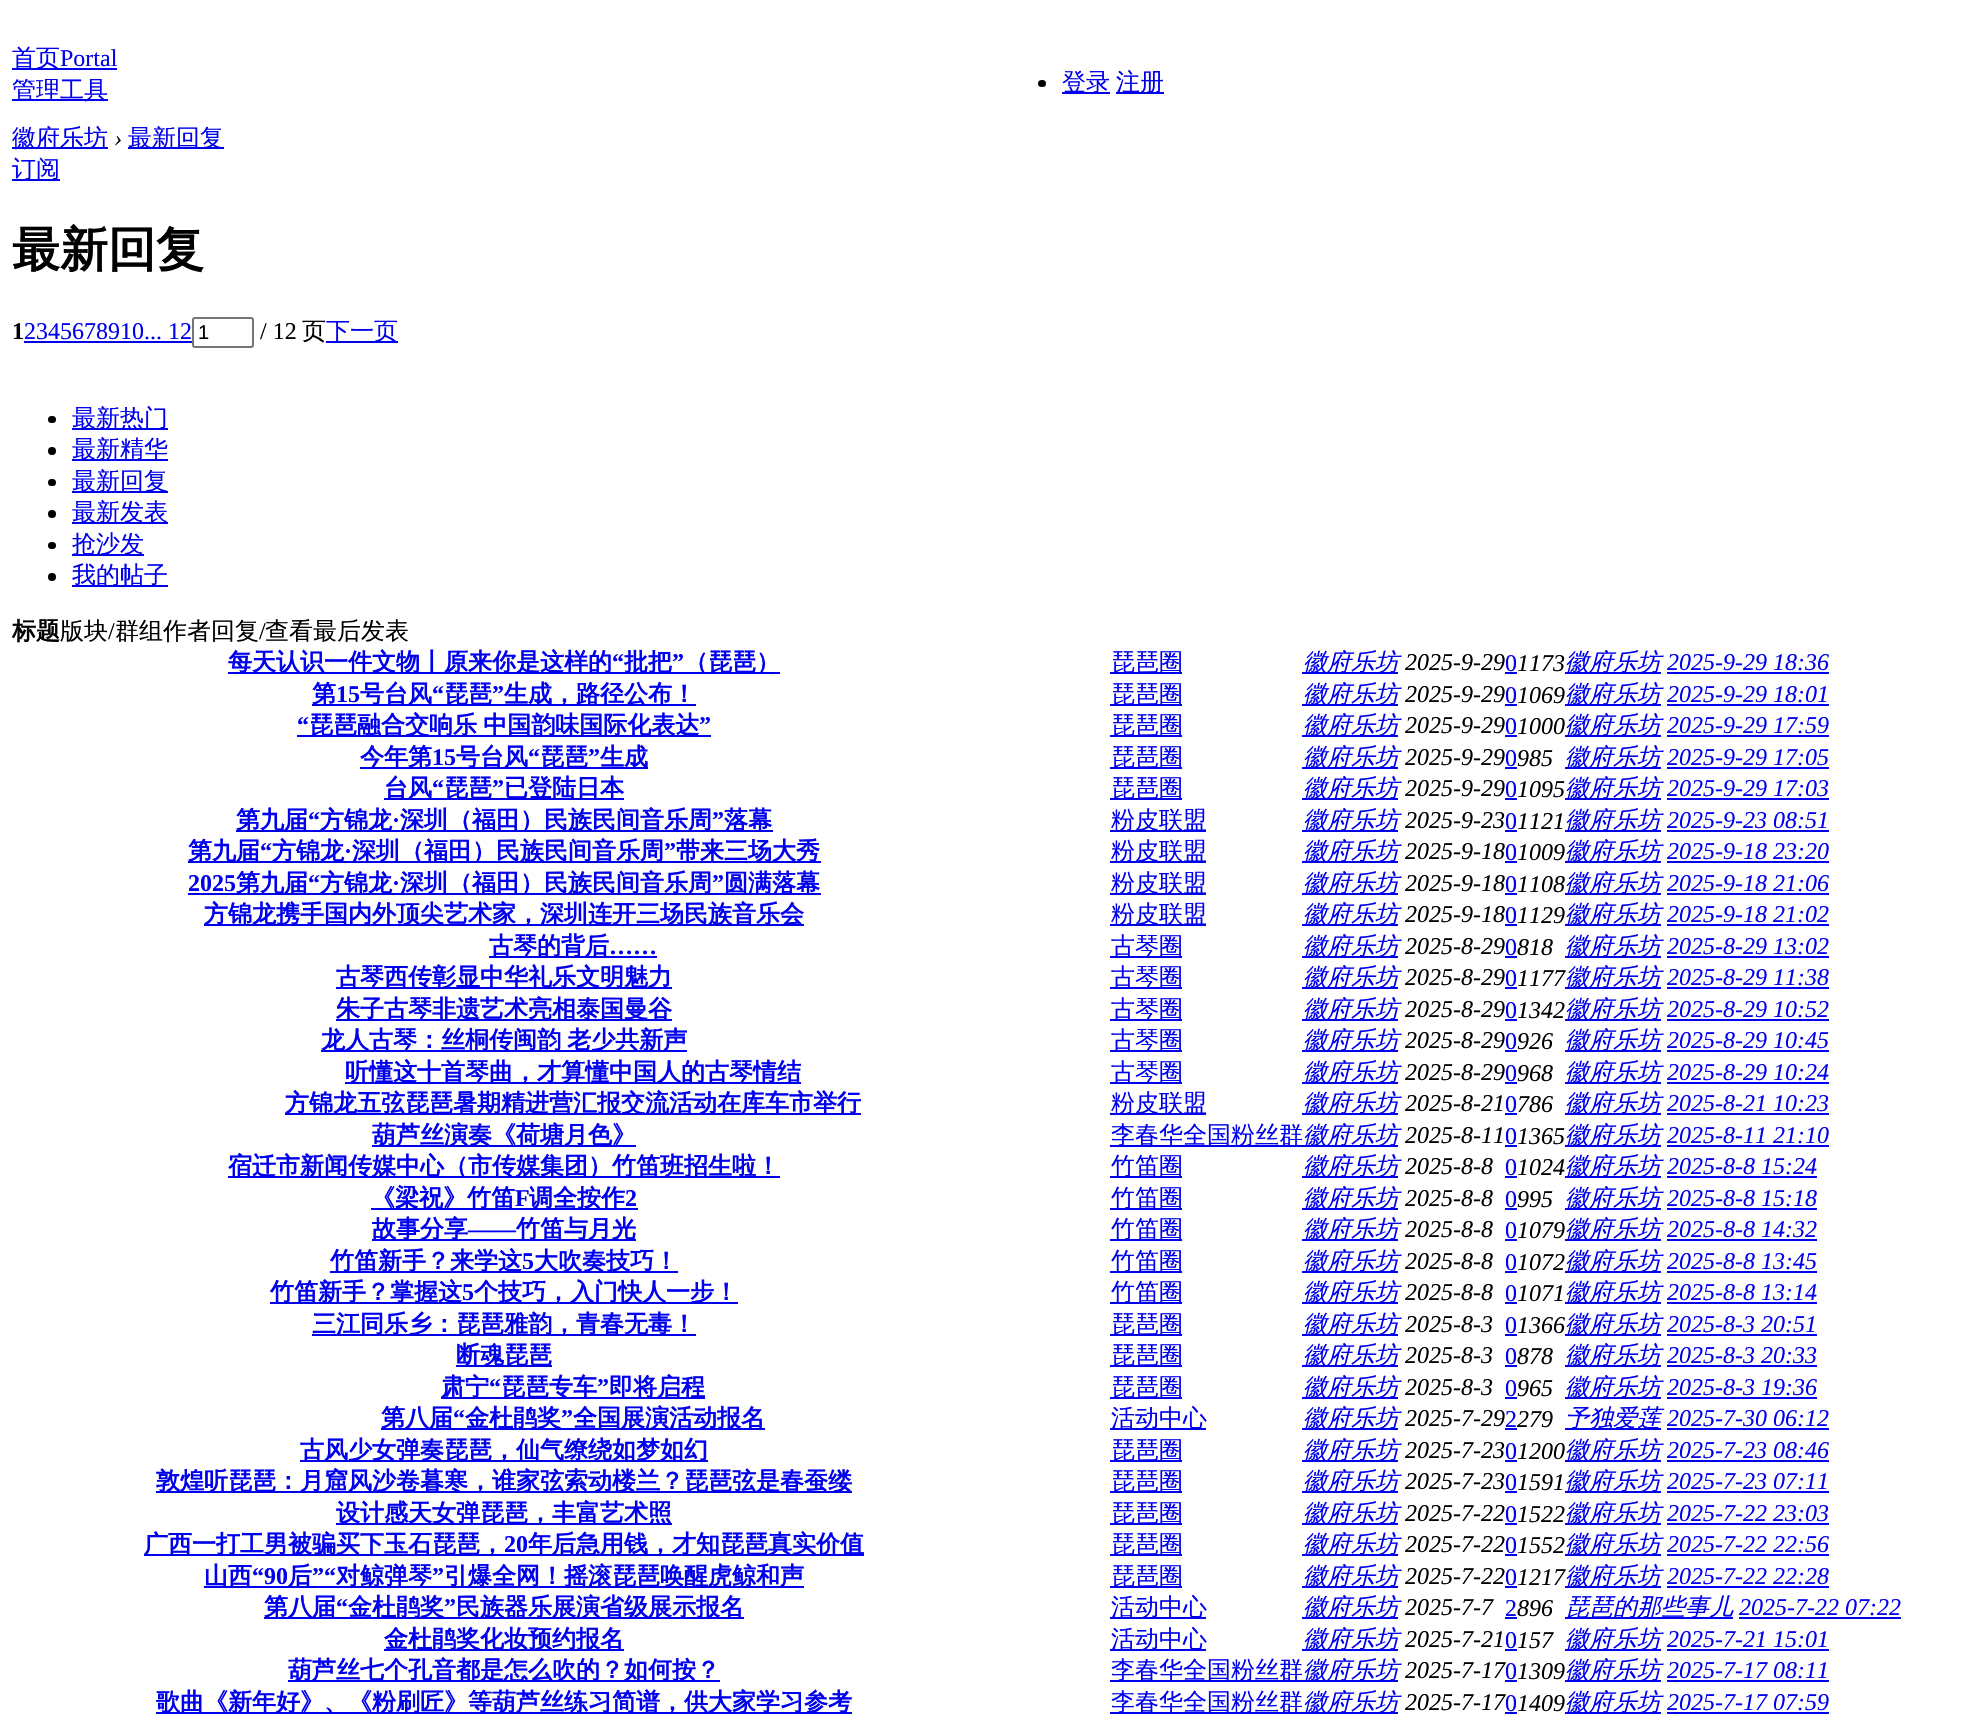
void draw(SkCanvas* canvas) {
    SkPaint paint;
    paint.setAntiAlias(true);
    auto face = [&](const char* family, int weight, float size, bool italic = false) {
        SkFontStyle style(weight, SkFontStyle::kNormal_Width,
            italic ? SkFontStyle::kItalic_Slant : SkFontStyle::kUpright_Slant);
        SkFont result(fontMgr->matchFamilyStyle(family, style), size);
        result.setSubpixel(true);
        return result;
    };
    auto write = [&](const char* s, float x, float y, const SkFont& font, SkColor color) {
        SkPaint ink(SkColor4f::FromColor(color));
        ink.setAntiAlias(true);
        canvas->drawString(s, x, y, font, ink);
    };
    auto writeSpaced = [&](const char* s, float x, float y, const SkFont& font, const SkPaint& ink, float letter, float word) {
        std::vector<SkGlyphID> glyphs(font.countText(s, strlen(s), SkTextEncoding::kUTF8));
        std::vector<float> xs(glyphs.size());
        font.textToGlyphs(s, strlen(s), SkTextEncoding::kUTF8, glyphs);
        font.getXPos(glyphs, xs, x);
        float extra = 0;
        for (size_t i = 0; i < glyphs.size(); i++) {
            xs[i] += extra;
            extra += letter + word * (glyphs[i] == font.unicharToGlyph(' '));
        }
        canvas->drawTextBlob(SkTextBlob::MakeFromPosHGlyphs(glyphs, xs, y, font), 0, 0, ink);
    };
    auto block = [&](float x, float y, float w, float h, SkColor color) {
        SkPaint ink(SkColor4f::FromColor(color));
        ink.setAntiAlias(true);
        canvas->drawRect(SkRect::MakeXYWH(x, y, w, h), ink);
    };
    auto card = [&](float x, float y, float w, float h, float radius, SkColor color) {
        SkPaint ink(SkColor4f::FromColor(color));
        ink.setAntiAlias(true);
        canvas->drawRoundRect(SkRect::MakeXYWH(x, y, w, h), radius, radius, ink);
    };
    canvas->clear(SK_ColorWHITE);
    block(12, 68, 105, 2, SkColorSetRGB(0, 0, 238));
    auto kFont1 = face("WenQuanYi Zen Hei", 500, 24);
    write("首页", 12, 66, kFont1, SkColorSetRGB(0, 0, 238));
    auto kFont2 = face("Liberation Serif", 400, 24);
    write("Portal", 60, 66, kFont2, SkColorSetRGB(0, 0, 238));
    block(12, 99, 96, 2, SkColorSetRGB(0, 0, 238));
    write("管理工具", 12, 98, kFont1, SkColorSetRGB(0, 0, 238));
    card(1038, 80, 8, 7, 3.5f, SK_ColorBLACK);
    block(1062, 92, 48, 2, SkColorSetRGB(0, 0, 238));
    write("登录", 1062, 90, kFont1, SkColorSetRGB(0, 0, 238));
    block(1116, 92, 48, 2, SkColorSetRGB(0, 0, 238));
    write("注册", 1116, 90, kFont1, SkColorSetRGB(0, 0, 238));
    block(12, 147, 96, 2, SkColorSetRGB(0, 0, 238));
    write("徽府乐坊", 12, 146, kFont1, SkColorSetRGB(0, 0, 238));
    auto kFont3 = face("Liberation Serif", 400, 24, true);
    write("›", 114, 146, kFont3, SK_ColorBLACK);
    block(128, 147, 96, 2, SkColorSetRGB(0, 0, 238));
    write("最新回复", 128, 146, kFont1, SkColorSetRGB(0, 0, 238));
    block(12, 179, 48, 2, SkColorSetRGB(0, 0, 238));
    write("订阅", 12, 177, kFont1, SkColorSetRGB(0, 0, 238));
    auto kFont4 = face("WenQuanYi Zen Hei", 700, 48);
    write("最新回复", 12, 266, kFont4, SK_ColorBLACK);
    auto kFont5 = face("Liberation Serif", 700, 24);
    write("1", 12, 339, kFont5, SK_ColorBLACK);
    write("2345678910... 12", 24, 339, kFont2, SkColorSetRGB(0, 0, 238));
    block(24, 341, 168, 2, SkColorSetRGB(0, 0, 238));
    paint.setStyle(SkPaint::kStroke_Style);
    paint.setStrokeWidth(2);
    paint.setColor(SkColorSetRGB(118, 118, 118));
    canvas->drawRoundRect(SkRect::MakeXYWH(193, 318, 60, 29), 2, 2, paint);
    auto kFont6 = face("Liberation Sans", 400, 20);
    write("1", 198, 339, kFont6, SK_ColorBLACK);
    write("/ 12", 260, 339, kFont2, SK_ColorBLACK);
    write("页", 302, 339, kFont1, SK_ColorBLACK);
    block(326, 341, 72, 2, SkColorSetRGB(0, 0, 238));
    write("下一页", 326, 339, kFont1, SkColorSetRGB(0, 0, 238));
    card(48, 416, 8, 7, 3.5f, SK_ColorBLACK);
    block(72, 428, 96, 2, SkColorSetRGB(0, 0, 238));
    write("最新热门", 72, 426, kFont1, SkColorSetRGB(0, 0, 238));
    paint.setStyle(SkPaint::kFill_Style);
    paint.setColor(SK_ColorBLACK);
    canvas->drawCircle(52, 451, 4, paint);
    block(72, 459, 96, 2, SkColorSetRGB(0, 0, 238));
    write("最新精华", 72, 457, kFont1, SkColorSetRGB(0, 0, 238));
    card(48, 479, 8, 7, 3.5f, SK_ColorBLACK);
    block(72, 491, 96, 2, SkColorSetRGB(0, 0, 238));
    write("最新回复", 72, 489, kFont1, SkColorSetRGB(0, 0, 238));
    canvas->drawCircle(52, 514, 4, paint);
    block(72, 522, 96, 2, SkColorSetRGB(0, 0, 238));
    write("最新发表", 72, 520, kFont1, SkColorSetRGB(0, 0, 238));
    card(48, 542, 8, 7, 3.5f, SK_ColorBLACK);
    block(72, 554, 72, 2, SkColorSetRGB(0, 0, 238));
    write("抢沙发", 72, 552, kFont1, SkColorSetRGB(0, 0, 238));
    canvas->drawCircle(52, 577, 4, paint);
    block(72, 585, 96, 2, SkColorSetRGB(0, 0, 238));
    write("我的帖子", 72, 583, kFont1, SkColorSetRGB(0, 0, 238));
    auto kFont7 = face("WenQuanYi Zen Hei", 700, 24);
    write("标题", 12, 639, kFont7, SK_ColorBLACK);
    write("版块", 60, 639, kFont1, SK_ColorBLACK);
    write("/", 108, 639, kFont2, SK_ColorBLACK);
    write("群组作者回复", 115, 639, kFont1, SK_ColorBLACK);
    write("/", 259, 639, kFont2, SK_ColorBLACK);
    write("查看最后发表", 265, 639, kFont1, SK_ColorBLACK);
    block(228, 672, 552, 2, SkColorSetRGB(0, 0, 238));
    write("每天认识一件文物丨原来你是这样的", 228, 670, kFont7, SkColorSetRGB(0, 0, 238));
    write("“", 612, 670, kFont5, SkColorSetRGB(0, 0, 238));
    write("批把", 624, 670, kFont7, SkColorSetRGB(0, 0, 238));
    write("”", 672, 670, kFont5, SkColorSetRGB(0, 0, 238));
    write("（琵琶）", 684, 670, kFont7, SkColorSetRGB(0, 0, 238));
    block(1110, 672, 72, 2, SkColorSetRGB(0, 0, 238));
    write("琵琶圈", 1111, 670, kFont1, SkColorSetRGB(0, 0, 238));
    block(1302, 672, 96, 2, SkColorSetRGB(0, 0, 238));
    auto kFont8 = face("WenQuanYi Zen Hei", 500, 24, true);
    write("徽府乐坊", 1303, 670, kFont8, SkColorSetRGB(0, 0, 238));
    write("2025-9-29", 1405, 670, kFont3, SK_ColorBLACK);
    write("0", 1505, 671, kFont2, SkColorSetRGB(0, 0, 238));
    block(1505, 672, 12, 2, SkColorSetRGB(0, 0, 238));
    write("1173", 1517, 671, kFont3, SK_ColorBLACK);
    block(1565, 672, 96, 2, SkColorSetRGB(0, 0, 238));
    write("徽府乐坊", 1565, 670, kFont8, SkColorSetRGB(0, 0, 238));
    write("2025-9-29 18:36", 1667, 670, kFont3, SkColorSetRGB(0, 0, 238));
    block(1667, 672, 162, 2, SkColorSetRGB(0, 0, 238));
    block(312, 704, 384, 2, SkColorSetRGB(0, 0, 238));
    write("第", 312, 702, kFont7, SkColorSetRGB(0, 0, 238));
    write("15", 336, 702, kFont5, SkColorSetRGB(0, 0, 238));
    write("号台风", 360, 702, kFont7, SkColorSetRGB(0, 0, 238));
    write("“", 432, 702, kFont5, SkColorSetRGB(0, 0, 238));
    write("琵琶", 444, 702, kFont7, SkColorSetRGB(0, 0, 238));
    write("”", 492, 702, kFont5, SkColorSetRGB(0, 0, 238));
    write("生成，路径公布！", 504, 702, kFont7, SkColorSetRGB(0, 0, 238));
    block(1110, 704, 72, 2, SkColorSetRGB(0, 0, 238));
    write("琵琶圈", 1111, 702, kFont1, SkColorSetRGB(0, 0, 238));
    block(1302, 704, 96, 2, SkColorSetRGB(0, 0, 238));
    write("徽府乐坊", 1303, 702, kFont8, SkColorSetRGB(0, 0, 238));
    write("2025-9-29", 1405, 702, kFont3, SK_ColorBLACK);
    write("0", 1505, 703, kFont2, SkColorSetRGB(0, 0, 238));
    block(1505, 704, 12, 2, SkColorSetRGB(0, 0, 238));
    write("1069", 1517, 703, kFont3, SK_ColorBLACK);
    block(1565, 704, 96, 2, SkColorSetRGB(0, 0, 238));
    write("徽府乐坊", 1565, 702, kFont8, SkColorSetRGB(0, 0, 238));
    write("2025-9-29 18:01", 1667, 702, kFont3, SkColorSetRGB(0, 0, 238));
    block(1667, 704, 162, 2, SkColorSetRGB(0, 0, 238));
    write("“", 297, 733, kFont5, SkColorSetRGB(0, 0, 238));
    block(297, 735, 414, 2, SkColorSetRGB(0, 0, 238));
    paint.setColor(SkColorSetRGB(0, 0, 238));
    writeSpaced("琵琶融合交响乐 中国韵味国际化表达", 309, 733, kFont7, paint, 0, -1);
    write("”", 699, 733, kFont5, SkColorSetRGB(0, 0, 238));
    block(1110, 735, 72, 2, SkColorSetRGB(0, 0, 238));
    write("琵琶圈", 1111, 733, kFont1, SkColorSetRGB(0, 0, 238));
    block(1302, 735, 96, 2, SkColorSetRGB(0, 0, 238));
    write("徽府乐坊", 1303, 733, kFont8, SkColorSetRGB(0, 0, 238));
    write("2025-9-29", 1405, 733, kFont3, SK_ColorBLACK);
    write("0", 1505, 734, kFont2, SkColorSetRGB(0, 0, 238));
    block(1505, 735, 12, 2, SkColorSetRGB(0, 0, 238));
    write("1000", 1517, 734, kFont3, SK_ColorBLACK);
    block(1565, 735, 96, 2, SkColorSetRGB(0, 0, 238));
    write("徽府乐坊", 1565, 733, kFont8, SkColorSetRGB(0, 0, 238));
    write("2025-9-29 17:59", 1667, 733, kFont3, SkColorSetRGB(0, 0, 238));
    block(1667, 735, 162, 2, SkColorSetRGB(0, 0, 238));
    block(360, 767, 288, 2, SkColorSetRGB(0, 0, 238));
    write("今年第", 360, 765, kFont7, SkColorSetRGB(0, 0, 238));
    write("15", 432, 765, kFont5, SkColorSetRGB(0, 0, 238));
    write("号台风", 456, 765, kFont7, SkColorSetRGB(0, 0, 238));
    write("“", 528, 765, kFont5, SkColorSetRGB(0, 0, 238));
    write("琵琶", 540, 765, kFont7, SkColorSetRGB(0, 0, 238));
    write("”", 588, 765, kFont5, SkColorSetRGB(0, 0, 238));
    write("生成", 600, 765, kFont7, SkColorSetRGB(0, 0, 238));
    block(1110, 767, 72, 2, SkColorSetRGB(0, 0, 238));
    write("琵琶圈", 1111, 765, kFont1, SkColorSetRGB(0, 0, 238));
    block(1302, 767, 96, 2, SkColorSetRGB(0, 0, 238));
    write("徽府乐坊", 1303, 765, kFont8, SkColorSetRGB(0, 0, 238));
    write("2025-9-29", 1405, 765, kFont3, SK_ColorBLACK);
    write("0", 1505, 766, kFont2, SkColorSetRGB(0, 0, 238));
    block(1505, 767, 12, 2, SkColorSetRGB(0, 0, 238));
    write("985", 1517, 766, kFont3, SK_ColorBLACK);
    block(1565, 767, 96, 2, SkColorSetRGB(0, 0, 238));
    write("徽府乐坊", 1565, 765, kFont8, SkColorSetRGB(0, 0, 238));
    write("2025-9-29 17:05", 1667, 765, kFont3, SkColorSetRGB(0, 0, 238));
    block(1667, 767, 162, 2, SkColorSetRGB(0, 0, 238));
    block(384, 798, 240, 2, SkColorSetRGB(0, 0, 238));
    write("台风", 384, 796, kFont7, SkColorSetRGB(0, 0, 238));
    write("“", 432, 796, kFont5, SkColorSetRGB(0, 0, 238));
    write("琵琶", 444, 796, kFont7, SkColorSetRGB(0, 0, 238));
    write("”", 492, 796, kFont5, SkColorSetRGB(0, 0, 238));
    write("已登陆日本", 504, 796, kFont7, SkColorSetRGB(0, 0, 238));
    block(1110, 798, 72, 2, SkColorSetRGB(0, 0, 238));
    write("琵琶圈", 1111, 796, kFont1, SkColorSetRGB(0, 0, 238));
    block(1302, 798, 96, 2, SkColorSetRGB(0, 0, 238));
    write("徽府乐坊", 1303, 796, kFont8, SkColorSetRGB(0, 0, 238));
    write("2025-9-29", 1405, 796, kFont3, SK_ColorBLACK);
    write("0", 1505, 797, kFont2, SkColorSetRGB(0, 0, 238));
    block(1505, 798, 12, 2, SkColorSetRGB(0, 0, 238));
    write("1095", 1517, 797, kFont3, SK_ColorBLACK);
    block(1565, 798, 96, 2, SkColorSetRGB(0, 0, 238));
    write("徽府乐坊", 1565, 796, kFont8, SkColorSetRGB(0, 0, 238));
    write("2025-9-29 17:03", 1667, 796, kFont3, SkColorSetRGB(0, 0, 238));
    block(1667, 798, 162, 2, SkColorSetRGB(0, 0, 238));
    block(236, 830, 537, 2, SkColorSetRGB(0, 0, 238));
    write("第九届", 236, 828, kFont7, SkColorSetRGB(0, 0, 238));
    write("“", 308, 828, kFont5, SkColorSetRGB(0, 0, 238));
    write("方锦龙", 320, 828, kFont7, SkColorSetRGB(0, 0, 238));
    write("·", 392, 828, kFont5, SkColorSetRGB(0, 0, 238));
    write("深圳（福田）民族民间音乐周", 400, 828, kFont7, SkColorSetRGB(0, 0, 238));
    write("”", 712, 828, kFont5, SkColorSetRGB(0, 0, 238));
    write("落幕", 724, 828, kFont7, SkColorSetRGB(0, 0, 238));
    block(1110, 830, 96, 2, SkColorSetRGB(0, 0, 238));
    write("粉皮联盟", 1111, 828, kFont1, SkColorSetRGB(0, 0, 238));
    block(1302, 830, 96, 2, SkColorSetRGB(0, 0, 238));
    write("徽府乐坊", 1303, 828, kFont8, SkColorSetRGB(0, 0, 238));
    write("2025-9-23", 1405, 828, kFont3, SK_ColorBLACK);
    write("0", 1505, 829, kFont2, SkColorSetRGB(0, 0, 238));
    block(1505, 830, 12, 2, SkColorSetRGB(0, 0, 238));
    write("1121", 1517, 829, kFont3, SK_ColorBLACK);
    block(1565, 830, 96, 2, SkColorSetRGB(0, 0, 238));
    write("徽府乐坊", 1565, 828, kFont8, SkColorSetRGB(0, 0, 238));
    write("2025-9-23 08:51", 1667, 828, kFont3, SkColorSetRGB(0, 0, 238));
    block(1667, 830, 162, 2, SkColorSetRGB(0, 0, 238));
    block(188, 861, 633, 2, SkColorSetRGB(0, 0, 238));
    write("第九届", 188, 859, kFont7, SkColorSetRGB(0, 0, 238));
    write("“", 260, 859, kFont5, SkColorSetRGB(0, 0, 238));
    write("方锦龙", 272, 859, kFont7, SkColorSetRGB(0, 0, 238));
    write("·", 344, 859, kFont5, SkColorSetRGB(0, 0, 238));
    write("深圳（福田）民族民间音乐周", 352, 859, kFont7, SkColorSetRGB(0, 0, 238));
    write("”", 664, 859, kFont5, SkColorSetRGB(0, 0, 238));
    write("带来三场大秀", 676, 859, kFont7, SkColorSetRGB(0, 0, 238));
    block(1110, 861, 96, 2, SkColorSetRGB(0, 0, 238));
    write("粉皮联盟", 1111, 859, kFont1, SkColorSetRGB(0, 0, 238));
    block(1302, 861, 96, 2, SkColorSetRGB(0, 0, 238));
    write("徽府乐坊", 1303, 859, kFont8, SkColorSetRGB(0, 0, 238));
    write("2025-9-18", 1405, 859, kFont3, SK_ColorBLACK);
    write("0", 1505, 860, kFont2, SkColorSetRGB(0, 0, 238));
    block(1505, 861, 12, 2, SkColorSetRGB(0, 0, 238));
    write("1009", 1517, 860, kFont3, SK_ColorBLACK);
    block(1565, 861, 96, 2, SkColorSetRGB(0, 0, 238));
    write("徽府乐坊", 1565, 859, kFont8, SkColorSetRGB(0, 0, 238));
    write("2025-9-18 23:20", 1667, 859, kFont3, SkColorSetRGB(0, 0, 238));
    block(1667, 861, 162, 2, SkColorSetRGB(0, 0, 238));
    write("2025", 188, 891, kFont5, SkColorSetRGB(0, 0, 238));
    block(188, 893, 633, 2, SkColorSetRGB(0, 0, 238));
    write("第九届", 236, 891, kFont7, SkColorSetRGB(0, 0, 238));
    write("“", 308, 891, kFont5, SkColorSetRGB(0, 0, 238));
    write("方锦龙", 320, 891, kFont7, SkColorSetRGB(0, 0, 238));
    write("·", 392, 891, kFont5, SkColorSetRGB(0, 0, 238));
    write("深圳（福田）民族民间音乐周", 400, 891, kFont7, SkColorSetRGB(0, 0, 238));
    write("”", 712, 891, kFont5, SkColorSetRGB(0, 0, 238));
    write("圆满落幕", 724, 891, kFont7, SkColorSetRGB(0, 0, 238));
    block(1110, 893, 96, 2, SkColorSetRGB(0, 0, 238));
    write("粉皮联盟", 1111, 891, kFont1, SkColorSetRGB(0, 0, 238));
    block(1302, 893, 96, 2, SkColorSetRGB(0, 0, 238));
    write("徽府乐坊", 1303, 891, kFont8, SkColorSetRGB(0, 0, 238));
    write("2025-9-18", 1405, 891, kFont3, SK_ColorBLACK);
    write("0", 1505, 892, kFont2, SkColorSetRGB(0, 0, 238));
    block(1505, 893, 12, 2, SkColorSetRGB(0, 0, 238));
    write("1108", 1517, 892, kFont3, SK_ColorBLACK);
    block(1565, 893, 96, 2, SkColorSetRGB(0, 0, 238));
    write("徽府乐坊", 1565, 891, kFont8, SkColorSetRGB(0, 0, 238));
    write("2025-9-18 21:06", 1667, 891, kFont3, SkColorSetRGB(0, 0, 238));
    block(1667, 893, 162, 2, SkColorSetRGB(0, 0, 238));
    block(204, 924, 600, 2, SkColorSetRGB(0, 0, 238));
    write("方锦龙携手国内外顶尖艺术家，深圳连开三场民族音乐会", 204, 922, kFont7, SkColorSetRGB(0, 0, 238));
    block(1110, 924, 96, 2, SkColorSetRGB(0, 0, 238));
    write("粉皮联盟", 1111, 922, kFont1, SkColorSetRGB(0, 0, 238));
    block(1302, 924, 96, 2, SkColorSetRGB(0, 0, 238));
    write("徽府乐坊", 1303, 922, kFont8, SkColorSetRGB(0, 0, 238));
    write("2025-9-18", 1405, 922, kFont3, SK_ColorBLACK);
    write("0", 1505, 923, kFont2, SkColorSetRGB(0, 0, 238));
    block(1505, 924, 12, 2, SkColorSetRGB(0, 0, 238));
    write("1129", 1517, 923, kFont3, SK_ColorBLACK);
    block(1565, 924, 96, 2, SkColorSetRGB(0, 0, 238));
    write("徽府乐坊", 1565, 922, kFont8, SkColorSetRGB(0, 0, 238));
    write("2025-9-18 21:02", 1667, 922, kFont3, SkColorSetRGB(0, 0, 238));
    block(1667, 924, 162, 2, SkColorSetRGB(0, 0, 238));
    block(489, 956, 168, 2, SkColorSetRGB(0, 0, 238));
    write("古琴的背后", 489, 954, kFont7, SkColorSetRGB(0, 0, 238));
    write("……", 609, 954, kFont5, SkColorSetRGB(0, 0, 238));
    block(1110, 956, 72, 2, SkColorSetRGB(0, 0, 238));
    write("古琴圈", 1111, 954, kFont1, SkColorSetRGB(0, 0, 238));
    block(1302, 956, 96, 2, SkColorSetRGB(0, 0, 238));
    write("徽府乐坊", 1303, 954, kFont8, SkColorSetRGB(0, 0, 238));
    write("2025-8-29", 1405, 954, kFont3, SK_ColorBLACK);
    write("0", 1505, 955, kFont2, SkColorSetRGB(0, 0, 238));
    block(1505, 956, 12, 2, SkColorSetRGB(0, 0, 238));
    write("818", 1517, 955, kFont3, SK_ColorBLACK);
    block(1565, 956, 96, 2, SkColorSetRGB(0, 0, 238));
    write("徽府乐坊", 1565, 954, kFont8, SkColorSetRGB(0, 0, 238));
    write("2025-8-29 13:02", 1667, 954, kFont3, SkColorSetRGB(0, 0, 238));
    block(1667, 956, 162, 2, SkColorSetRGB(0, 0, 238));
    block(336, 987, 336, 2, SkColorSetRGB(0, 0, 238));
    write("古琴西传彰显中华礼乐文明魅力", 336, 985, kFont7, SkColorSetRGB(0, 0, 238));
    block(1110, 987, 72, 2, SkColorSetRGB(0, 0, 238));
    write("古琴圈", 1111, 985, kFont1, SkColorSetRGB(0, 0, 238));
    block(1302, 987, 96, 2, SkColorSetRGB(0, 0, 238));
    write("徽府乐坊", 1303, 985, kFont8, SkColorSetRGB(0, 0, 238));
    write("2025-8-29", 1405, 985, kFont3, SK_ColorBLACK);
    write("0", 1505, 986, kFont2, SkColorSetRGB(0, 0, 238));
    block(1505, 987, 12, 2, SkColorSetRGB(0, 0, 238));
    write("1177", 1517, 986, kFont3, SK_ColorBLACK);
    block(1565, 987, 96, 2, SkColorSetRGB(0, 0, 238));
    write("徽府乐坊", 1565, 985, kFont8, SkColorSetRGB(0, 0, 238));
    write("2025-8-29 11:38", 1667, 985, kFont3, SkColorSetRGB(0, 0, 238));
    block(1667, 987, 162, 2, SkColorSetRGB(0, 0, 238));
    block(336, 1019, 336, 2, SkColorSetRGB(0, 0, 238));
    write("朱子古琴非遗艺术亮相泰国曼谷", 336, 1017, kFont7, SkColorSetRGB(0, 0, 238));
    block(1110, 1019, 72, 2, SkColorSetRGB(0, 0, 238));
    write("古琴圈", 1111, 1017, kFont1, SkColorSetRGB(0, 0, 238));
    block(1302, 1019, 96, 2, SkColorSetRGB(0, 0, 238));
    write("徽府乐坊", 1303, 1017, kFont8, SkColorSetRGB(0, 0, 238));
    write("2025-8-29", 1405, 1017, kFont3, SK_ColorBLACK);
    write("0", 1505, 1018, kFont2, SkColorSetRGB(0, 0, 238));
    block(1505, 1019, 12, 2, SkColorSetRGB(0, 0, 238));
    write("1342", 1517, 1018, kFont3, SK_ColorBLACK);
    block(1565, 1019, 96, 2, SkColorSetRGB(0, 0, 238));
    write("徽府乐坊", 1565, 1017, kFont8, SkColorSetRGB(0, 0, 238));
    write("2025-8-29 10:52", 1667, 1017, kFont3, SkColorSetRGB(0, 0, 238));
    block(1667, 1019, 162, 2, SkColorSetRGB(0, 0, 238));
    block(321, 1050, 366, 2, SkColorSetRGB(0, 0, 238));
    writeSpaced("龙人古琴：丝桐传闽韵 老少共新声", 321, 1048, kFont7, paint, 0, -1);
    block(1110, 1050, 72, 2, SkColorSetRGB(0, 0, 238));
    write("古琴圈", 1111, 1048, kFont1, SkColorSetRGB(0, 0, 238));
    block(1302, 1050, 96, 2, SkColorSetRGB(0, 0, 238));
    write("徽府乐坊", 1303, 1048, kFont8, SkColorSetRGB(0, 0, 238));
    write("2025-8-29", 1405, 1048, kFont3, SK_ColorBLACK);
    write("0", 1505, 1049, kFont2, SkColorSetRGB(0, 0, 238));
    block(1505, 1050, 12, 2, SkColorSetRGB(0, 0, 238));
    write("926", 1517, 1049, kFont3, SK_ColorBLACK);
    block(1565, 1050, 96, 2, SkColorSetRGB(0, 0, 238));
    write("徽府乐坊", 1565, 1048, kFont8, SkColorSetRGB(0, 0, 238));
    write("2025-8-29 10:45", 1667, 1048, kFont3, SkColorSetRGB(0, 0, 238));
    block(1667, 1050, 162, 2, SkColorSetRGB(0, 0, 238));
    block(345, 1082, 456, 2, SkColorSetRGB(0, 0, 238));
    write("听懂这十首琴曲，才算懂中国人的古琴情结", 345, 1080, kFont7, SkColorSetRGB(0, 0, 238));
    block(1110, 1082, 72, 2, SkColorSetRGB(0, 0, 238));
    write("古琴圈", 1111, 1080, kFont1, SkColorSetRGB(0, 0, 238));
    block(1302, 1082, 96, 2, SkColorSetRGB(0, 0, 238));
    write("徽府乐坊", 1303, 1080, kFont8, SkColorSetRGB(0, 0, 238));
    write("2025-8-29", 1405, 1080, kFont3, SK_ColorBLACK);
    write("0", 1505, 1081, kFont2, SkColorSetRGB(0, 0, 238));
    block(1505, 1082, 12, 2, SkColorSetRGB(0, 0, 238));
    write("968", 1517, 1081, kFont3, SK_ColorBLACK);
    block(1565, 1082, 96, 2, SkColorSetRGB(0, 0, 238));
    write("徽府乐坊", 1565, 1080, kFont8, SkColorSetRGB(0, 0, 238));
    write("2025-8-29 10:24", 1667, 1080, kFont3, SkColorSetRGB(0, 0, 238));
    block(1667, 1082, 162, 2, SkColorSetRGB(0, 0, 238));
    block(285, 1113, 576, 2, SkColorSetRGB(0, 0, 238));
    write("方锦龙五弦琵琶暑期精进营汇报交流活动在库车市举行", 285, 1111, kFont7, SkColorSetRGB(0, 0, 238));
    block(1110, 1113, 96, 2, SkColorSetRGB(0, 0, 238));
    write("粉皮联盟", 1111, 1111, kFont1, SkColorSetRGB(0, 0, 238));
    block(1302, 1113, 96, 2, SkColorSetRGB(0, 0, 238));
    write("徽府乐坊", 1303, 1111, kFont8, SkColorSetRGB(0, 0, 238));
    write("2025-8-21", 1405, 1111, kFont3, SK_ColorBLACK);
    write("0", 1505, 1112, kFont2, SkColorSetRGB(0, 0, 238));
    block(1505, 1113, 12, 2, SkColorSetRGB(0, 0, 238));
    write("786", 1517, 1112, kFont3, SK_ColorBLACK);
    block(1565, 1113, 96, 2, SkColorSetRGB(0, 0, 238));
    write("徽府乐坊", 1565, 1111, kFont8, SkColorSetRGB(0, 0, 238));
    write("2025-8-21 10:23", 1667, 1111, kFont3, SkColorSetRGB(0, 0, 238));
    block(1667, 1113, 162, 2, SkColorSetRGB(0, 0, 238));
    block(372, 1145, 264, 2, SkColorSetRGB(0, 0, 238));
    write("葫芦丝演奏《荷塘月色》", 372, 1143, kFont7, SkColorSetRGB(0, 0, 238));
    block(1110, 1145, 288, 2, SkColorSetRGB(0, 0, 238));
    write("李春华全国粉丝群", 1111, 1143, kFont1, SkColorSetRGB(0, 0, 238));
    write("徽府乐坊", 1303, 1143, kFont8, SkColorSetRGB(0, 0, 238));
    write("2025-8-11", 1405, 1143, kFont3, SK_ColorBLACK);
    write("0", 1505, 1144, kFont2, SkColorSetRGB(0, 0, 238));
    block(1505, 1145, 12, 2, SkColorSetRGB(0, 0, 238));
    write("1365", 1517, 1144, kFont3, SK_ColorBLACK);
    block(1565, 1145, 96, 2, SkColorSetRGB(0, 0, 238));
    write("徽府乐坊", 1565, 1143, kFont8, SkColorSetRGB(0, 0, 238));
    write("2025-8-11 21:10", 1667, 1143, kFont3, SkColorSetRGB(0, 0, 238));
    block(1667, 1145, 162, 2, SkColorSetRGB(0, 0, 238));
    block(228, 1176, 552, 2, SkColorSetRGB(0, 0, 238));
    write("宿迁市新闻传媒中心（市传媒集团）竹笛班招生啦！", 228, 1174, kFont7, SkColorSetRGB(0, 0, 238));
    block(1110, 1176, 72, 2, SkColorSetRGB(0, 0, 238));
    write("竹笛圈", 1111, 1174, kFont1, SkColorSetRGB(0, 0, 238));
    block(1302, 1176, 96, 2, SkColorSetRGB(0, 0, 238));
    write("徽府乐坊", 1303, 1174, kFont8, SkColorSetRGB(0, 0, 238));
    write("2025-8-8", 1405, 1174, kFont3, SK_ColorBLACK);
    write("0", 1505, 1175, kFont2, SkColorSetRGB(0, 0, 238));
    block(1505, 1176, 12, 2, SkColorSetRGB(0, 0, 238));
    write("1024", 1517, 1175, kFont3, SK_ColorBLACK);
    block(1565, 1176, 96, 2, SkColorSetRGB(0, 0, 238));
    write("徽府乐坊", 1565, 1174, kFont8, SkColorSetRGB(0, 0, 238));
    write("2025-8-8 15:24", 1667, 1174, kFont3, SkColorSetRGB(0, 0, 238));
    block(1667, 1176, 150, 2, SkColorSetRGB(0, 0, 238));
    block(371, 1208, 267, 2, SkColorSetRGB(0, 0, 238));
    write("《梁祝》竹笛", 371, 1206, kFont7, SkColorSetRGB(0, 0, 238));
    write("F", 515, 1206, kFont5, SkColorSetRGB(0, 0, 238));
    write("调全按作", 529, 1206, kFont7, SkColorSetRGB(0, 0, 238));
    write("2", 625, 1206, kFont5, SkColorSetRGB(0, 0, 238));
    block(1110, 1208, 72, 2, SkColorSetRGB(0, 0, 238));
    write("竹笛圈", 1111, 1206, kFont1, SkColorSetRGB(0, 0, 238));
    block(1302, 1208, 96, 2, SkColorSetRGB(0, 0, 238));
    write("徽府乐坊", 1303, 1206, kFont8, SkColorSetRGB(0, 0, 238));
    write("2025-8-8", 1405, 1206, kFont3, SK_ColorBLACK);
    write("0", 1505, 1207, kFont2, SkColorSetRGB(0, 0, 238));
    block(1505, 1208, 12, 2, SkColorSetRGB(0, 0, 238));
    write("995", 1517, 1207, kFont3, SK_ColorBLACK);
    block(1565, 1208, 96, 2, SkColorSetRGB(0, 0, 238));
    write("徽府乐坊", 1565, 1206, kFont8, SkColorSetRGB(0, 0, 238));
    write("2025-8-8 15:18", 1667, 1206, kFont3, SkColorSetRGB(0, 0, 238));
    block(1667, 1208, 150, 2, SkColorSetRGB(0, 0, 238));
    block(372, 1239, 264, 2, SkColorSetRGB(0, 0, 238));
    write("故事分享", 372, 1237, kFont7, SkColorSetRGB(0, 0, 238));
    write("——", 468, 1237, kFont5, SkColorSetRGB(0, 0, 238));
    write("竹笛与月光", 516, 1237, kFont7, SkColorSetRGB(0, 0, 238));
    block(1110, 1239, 72, 2, SkColorSetRGB(0, 0, 238));
    write("竹笛圈", 1111, 1237, kFont1, SkColorSetRGB(0, 0, 238));
    block(1302, 1239, 96, 2, SkColorSetRGB(0, 0, 238));
    write("徽府乐坊", 1303, 1237, kFont8, SkColorSetRGB(0, 0, 238));
    write("2025-8-8", 1405, 1237, kFont3, SK_ColorBLACK);
    write("0", 1505, 1238, kFont2, SkColorSetRGB(0, 0, 238));
    block(1505, 1239, 12, 2, SkColorSetRGB(0, 0, 238));
    write("1079", 1517, 1238, kFont3, SK_ColorBLACK);
    block(1565, 1239, 96, 2, SkColorSetRGB(0, 0, 238));
    write("徽府乐坊", 1565, 1237, kFont8, SkColorSetRGB(0, 0, 238));
    write("2025-8-8 14:32", 1667, 1237, kFont3, SkColorSetRGB(0, 0, 238));
    block(1667, 1239, 150, 2, SkColorSetRGB(0, 0, 238));
    block(330, 1271, 348, 2, SkColorSetRGB(0, 0, 238));
    write("竹笛新手？来学这", 330, 1269, kFont7, SkColorSetRGB(0, 0, 238));
    write("5", 522, 1269, kFont5, SkColorSetRGB(0, 0, 238));
    write("大吹奏技巧！", 534, 1269, kFont7, SkColorSetRGB(0, 0, 238));
    block(1110, 1271, 72, 2, SkColorSetRGB(0, 0, 238));
    write("竹笛圈", 1111, 1269, kFont1, SkColorSetRGB(0, 0, 238));
    block(1302, 1271, 96, 2, SkColorSetRGB(0, 0, 238));
    write("徽府乐坊", 1303, 1269, kFont8, SkColorSetRGB(0, 0, 238));
    write("2025-8-8", 1405, 1269, kFont3, SK_ColorBLACK);
    write("0", 1505, 1270, kFont2, SkColorSetRGB(0, 0, 238));
    block(1505, 1271, 12, 2, SkColorSetRGB(0, 0, 238));
    write("1072", 1517, 1270, kFont3, SK_ColorBLACK);
    block(1565, 1271, 96, 2, SkColorSetRGB(0, 0, 238));
    write("徽府乐坊", 1565, 1269, kFont8, SkColorSetRGB(0, 0, 238));
    write("2025-8-8 13:45", 1667, 1269, kFont3, SkColorSetRGB(0, 0, 238));
    block(1667, 1271, 150, 2, SkColorSetRGB(0, 0, 238));
    block(270, 1302, 468, 2, SkColorSetRGB(0, 0, 238));
    write("竹笛新手？掌握这", 270, 1300, kFont7, SkColorSetRGB(0, 0, 238));
    write("5", 462, 1300, kFont5, SkColorSetRGB(0, 0, 238));
    write("个技巧，入门快人一步！", 474, 1300, kFont7, SkColorSetRGB(0, 0, 238));
    block(1110, 1302, 72, 2, SkColorSetRGB(0, 0, 238));
    write("竹笛圈", 1111, 1300, kFont1, SkColorSetRGB(0, 0, 238));
    block(1302, 1302, 96, 2, SkColorSetRGB(0, 0, 238));
    write("徽府乐坊", 1303, 1300, kFont8, SkColorSetRGB(0, 0, 238));
    write("2025-8-8", 1405, 1300, kFont3, SK_ColorBLACK);
    write("0", 1505, 1301, kFont2, SkColorSetRGB(0, 0, 238));
    block(1505, 1302, 12, 2, SkColorSetRGB(0, 0, 238));
    write("1071", 1517, 1301, kFont3, SK_ColorBLACK);
    block(1565, 1302, 96, 2, SkColorSetRGB(0, 0, 238));
    write("徽府乐坊", 1565, 1300, kFont8, SkColorSetRGB(0, 0, 238));
    write("2025-8-8 13:14", 1667, 1300, kFont3, SkColorSetRGB(0, 0, 238));
    block(1667, 1302, 150, 2, SkColorSetRGB(0, 0, 238));
    block(312, 1334, 384, 2, SkColorSetRGB(0, 0, 238));
    write("三江同乐乡：琵琶雅韵，青春无毒！", 312, 1332, kFont7, SkColorSetRGB(0, 0, 238));
    block(1110, 1334, 72, 2, SkColorSetRGB(0, 0, 238));
    write("琵琶圈", 1111, 1332, kFont1, SkColorSetRGB(0, 0, 238));
    block(1302, 1334, 96, 2, SkColorSetRGB(0, 0, 238));
    write("徽府乐坊", 1303, 1332, kFont8, SkColorSetRGB(0, 0, 238));
    write("2025-8-3", 1405, 1332, kFont3, SK_ColorBLACK);
    write("0", 1505, 1333, kFont2, SkColorSetRGB(0, 0, 238));
    block(1505, 1334, 12, 2, SkColorSetRGB(0, 0, 238));
    write("1366", 1517, 1333, kFont3, SK_ColorBLACK);
    block(1565, 1334, 96, 2, SkColorSetRGB(0, 0, 238));
    write("徽府乐坊", 1565, 1332, kFont8, SkColorSetRGB(0, 0, 238));
    write("2025-8-3 20:51", 1667, 1332, kFont3, SkColorSetRGB(0, 0, 238));
    block(1667, 1334, 150, 2, SkColorSetRGB(0, 0, 238));
    block(456, 1365, 96, 2, SkColorSetRGB(0, 0, 238));
    write("断魂琵琶", 456, 1363, kFont7, SkColorSetRGB(0, 0, 238));
    block(1110, 1365, 72, 2, SkColorSetRGB(0, 0, 238));
    write("琵琶圈", 1111, 1363, kFont1, SkColorSetRGB(0, 0, 238));
    block(1302, 1365, 96, 2, SkColorSetRGB(0, 0, 238));
    write("徽府乐坊", 1303, 1363, kFont8, SkColorSetRGB(0, 0, 238));
    write("2025-8-3", 1405, 1363, kFont3, SK_ColorBLACK);
    write("0", 1505, 1364, kFont2, SkColorSetRGB(0, 0, 238));
    block(1505, 1365, 12, 2, SkColorSetRGB(0, 0, 238));
    write("878", 1517, 1364, kFont3, SK_ColorBLACK);
    block(1565, 1365, 96, 2, SkColorSetRGB(0, 0, 238));
    write("徽府乐坊", 1565, 1363, kFont8, SkColorSetRGB(0, 0, 238));
    write("2025-8-3 20:33", 1667, 1363, kFont3, SkColorSetRGB(0, 0, 238));
    block(1667, 1365, 150, 2, SkColorSetRGB(0, 0, 238));
    block(441, 1397, 264, 2, SkColorSetRGB(0, 0, 238));
    write("肃宁", 441, 1395, kFont7, SkColorSetRGB(0, 0, 238));
    write("“", 489, 1395, kFont5, SkColorSetRGB(0, 0, 238));
    write("琵琶专车", 501, 1395, kFont7, SkColorSetRGB(0, 0, 238));
    write("”", 597, 1395, kFont5, SkColorSetRGB(0, 0, 238));
    write("即将启程", 609, 1395, kFont7, SkColorSetRGB(0, 0, 238));
    block(1110, 1397, 72, 2, SkColorSetRGB(0, 0, 238));
    write("琵琶圈", 1111, 1395, kFont1, SkColorSetRGB(0, 0, 238));
    block(1302, 1397, 96, 2, SkColorSetRGB(0, 0, 238));
    write("徽府乐坊", 1303, 1395, kFont8, SkColorSetRGB(0, 0, 238));
    write("2025-8-3", 1405, 1395, kFont3, SK_ColorBLACK);
    write("0", 1505, 1396, kFont2, SkColorSetRGB(0, 0, 238));
    block(1505, 1397, 12, 2, SkColorSetRGB(0, 0, 238));
    write("965", 1517, 1396, kFont3, SK_ColorBLACK);
    block(1565, 1397, 96, 2, SkColorSetRGB(0, 0, 238));
    write("徽府乐坊", 1565, 1395, kFont8, SkColorSetRGB(0, 0, 238));
    write("2025-8-3 19:36", 1667, 1395, kFont3, SkColorSetRGB(0, 0, 238));
    block(1667, 1397, 150, 2, SkColorSetRGB(0, 0, 238));
    block(381, 1428, 384, 2, SkColorSetRGB(0, 0, 238));
    write("第八届", 381, 1426, kFont7, SkColorSetRGB(0, 0, 238));
    write("“", 453, 1426, kFont5, SkColorSetRGB(0, 0, 238));
    write("金杜鹃奖", 465, 1426, kFont7, SkColorSetRGB(0, 0, 238));
    write("”", 561, 1426, kFont5, SkColorSetRGB(0, 0, 238));
    write("全国展演活动报名", 573, 1426, kFont7, SkColorSetRGB(0, 0, 238));
    block(1110, 1428, 96, 2, SkColorSetRGB(0, 0, 238));
    write("活动中心", 1111, 1426, kFont1, SkColorSetRGB(0, 0, 238));
    block(1302, 1428, 96, 2, SkColorSetRGB(0, 0, 238));
    write("徽府乐坊", 1303, 1426, kFont8, SkColorSetRGB(0, 0, 238));
    write("2025-7-29", 1405, 1426, kFont3, SK_ColorBLACK);
    write("2", 1505, 1427, kFont2, SkColorSetRGB(0, 0, 238));
    block(1505, 1428, 12, 2, SkColorSetRGB(0, 0, 238));
    write("279", 1517, 1427, kFont3, SK_ColorBLACK);
    block(1565, 1428, 96, 2, SkColorSetRGB(0, 0, 238));
    write("予独爱莲", 1565, 1426, kFont8, SkColorSetRGB(0, 0, 238));
    write("2025-7-30 06:12", 1667, 1426, kFont3, SkColorSetRGB(0, 0, 238));
    block(1667, 1428, 162, 2, SkColorSetRGB(0, 0, 238));
    block(300, 1460, 408, 2, SkColorSetRGB(0, 0, 238));
    write("古风少女弹奏琵琶，仙气缭绕如梦如幻", 300, 1458, kFont7, SkColorSetRGB(0, 0, 238));
    block(1110, 1460, 72, 2, SkColorSetRGB(0, 0, 238));
    write("琵琶圈", 1111, 1458, kFont1, SkColorSetRGB(0, 0, 238));
    block(1302, 1460, 96, 2, SkColorSetRGB(0, 0, 238));
    write("徽府乐坊", 1303, 1458, kFont8, SkColorSetRGB(0, 0, 238));
    write("2025-7-23", 1405, 1458, kFont3, SK_ColorBLACK);
    write("0", 1505, 1459, kFont2, SkColorSetRGB(0, 0, 238));
    block(1505, 1460, 12, 2, SkColorSetRGB(0, 0, 238));
    write("1200", 1517, 1459, kFont3, SK_ColorBLACK);
    block(1565, 1460, 96, 2, SkColorSetRGB(0, 0, 238));
    write("徽府乐坊", 1565, 1458, kFont8, SkColorSetRGB(0, 0, 238));
    write("2025-7-23 08:46", 1667, 1458, kFont3, SkColorSetRGB(0, 0, 238));
    block(1667, 1460, 162, 2, SkColorSetRGB(0, 0, 238));
    block(156, 1491, 696, 2, SkColorSetRGB(0, 0, 238));
    write("敦煌听琵琶：月窟风沙卷暮寒，谁家弦索动楼兰？琵琶弦是春蚕缕", 156, 1489, kFont7, SkColorSetRGB(0, 0, 238));
    block(1110, 1491, 72, 2, SkColorSetRGB(0, 0, 238));
    write("琵琶圈", 1111, 1489, kFont1, SkColorSetRGB(0, 0, 238));
    block(1302, 1491, 96, 2, SkColorSetRGB(0, 0, 238));
    write("徽府乐坊", 1303, 1489, kFont8, SkColorSetRGB(0, 0, 238));
    write("2025-7-23", 1405, 1489, kFont3, SK_ColorBLACK);
    write("0", 1505, 1490, kFont2, SkColorSetRGB(0, 0, 238));
    block(1505, 1491, 12, 2, SkColorSetRGB(0, 0, 238));
    write("1591", 1517, 1490, kFont3, SK_ColorBLACK);
    block(1565, 1491, 96, 2, SkColorSetRGB(0, 0, 238));
    write("徽府乐坊", 1565, 1489, kFont8, SkColorSetRGB(0, 0, 238));
    write("2025-7-23 07:11", 1667, 1489, kFont3, SkColorSetRGB(0, 0, 238));
    block(1667, 1491, 162, 2, SkColorSetRGB(0, 0, 238));
    block(336, 1523, 336, 2, SkColorSetRGB(0, 0, 238));
    write("设计感天女弹琵琶，丰富艺术照", 336, 1521, kFont7, SkColorSetRGB(0, 0, 238));
    block(1110, 1523, 72, 2, SkColorSetRGB(0, 0, 238));
    write("琵琶圈", 1111, 1521, kFont1, SkColorSetRGB(0, 0, 238));
    block(1302, 1523, 96, 2, SkColorSetRGB(0, 0, 238));
    write("徽府乐坊", 1303, 1521, kFont8, SkColorSetRGB(0, 0, 238));
    write("2025-7-22", 1405, 1521, kFont3, SK_ColorBLACK);
    write("0", 1505, 1522, kFont2, SkColorSetRGB(0, 0, 238));
    block(1505, 1523, 12, 2, SkColorSetRGB(0, 0, 238));
    write("1522", 1517, 1522, kFont3, SK_ColorBLACK);
    block(1565, 1523, 96, 2, SkColorSetRGB(0, 0, 238));
    write("徽府乐坊", 1565, 1521, kFont8, SkColorSetRGB(0, 0, 238));
    write("2025-7-22 23:03", 1667, 1521, kFont3, SkColorSetRGB(0, 0, 238));
    block(1667, 1523, 162, 2, SkColorSetRGB(0, 0, 238));
    block(144, 1554, 720, 2, SkColorSetRGB(0, 0, 238));
    write("广西一打工男被骗买下玉石琵琶，", 144, 1552, kFont7, SkColorSetRGB(0, 0, 238));
    write("20", 504, 1552, kFont5, SkColorSetRGB(0, 0, 238));
    write("年后急用钱，才知琵琶真实价值", 528, 1552, kFont7, SkColorSetRGB(0, 0, 238));
    block(1110, 1554, 72, 2, SkColorSetRGB(0, 0, 238));
    write("琵琶圈", 1111, 1552, kFont1, SkColorSetRGB(0, 0, 238));
    block(1302, 1554, 96, 2, SkColorSetRGB(0, 0, 238));
    write("徽府乐坊", 1303, 1552, kFont8, SkColorSetRGB(0, 0, 238));
    write("2025-7-22", 1405, 1552, kFont3, SK_ColorBLACK);
    write("0", 1505, 1553, kFont2, SkColorSetRGB(0, 0, 238));
    block(1505, 1554, 12, 2, SkColorSetRGB(0, 0, 238));
    write("1552", 1517, 1553, kFont3, SK_ColorBLACK);
    block(1565, 1554, 96, 2, SkColorSetRGB(0, 0, 238));
    write("徽府乐坊", 1565, 1552, kFont8, SkColorSetRGB(0, 0, 238));
    write("2025-7-22 22:56", 1667, 1552, kFont3, SkColorSetRGB(0, 0, 238));
    block(1667, 1554, 162, 2, SkColorSetRGB(0, 0, 238));
    block(204, 1586, 600, 2, SkColorSetRGB(0, 0, 238));
    write("山西", 204, 1584, kFont7, SkColorSetRGB(0, 0, 238));
    write("“90", 252, 1584, kFont5, SkColorSetRGB(0, 0, 238));
    write("后", 288, 1584, kFont7, SkColorSetRGB(0, 0, 238));
    write("”“", 312, 1584, kFont5, SkColorSetRGB(0, 0, 238));
    write("对鲸弹琴", 336, 1584, kFont7, SkColorSetRGB(0, 0, 238));
    write("”", 432, 1584, kFont5, SkColorSetRGB(0, 0, 238));
    write("引爆全网！摇滚琵琶唤醒虎鲸和声", 444, 1584, kFont7, SkColorSetRGB(0, 0, 238));
    block(1110, 1586, 72, 2, SkColorSetRGB(0, 0, 238));
    write("琵琶圈", 1111, 1584, kFont1, SkColorSetRGB(0, 0, 238));
    block(1302, 1586, 96, 2, SkColorSetRGB(0, 0, 238));
    write("徽府乐坊", 1303, 1584, kFont8, SkColorSetRGB(0, 0, 238));
    write("2025-7-22", 1405, 1584, kFont3, SK_ColorBLACK);
    write("0", 1505, 1585, kFont2, SkColorSetRGB(0, 0, 238));
    block(1505, 1586, 12, 2, SkColorSetRGB(0, 0, 238));
    write("1217", 1517, 1585, kFont3, SK_ColorBLACK);
    block(1565, 1586, 96, 2, SkColorSetRGB(0, 0, 238));
    write("徽府乐坊", 1565, 1584, kFont8, SkColorSetRGB(0, 0, 238));
    write("2025-7-22 22:28", 1667, 1584, kFont3, SkColorSetRGB(0, 0, 238));
    block(1667, 1586, 162, 2, SkColorSetRGB(0, 0, 238));
    block(264, 1617, 480, 2, SkColorSetRGB(0, 0, 238));
    write("第八届", 264, 1615, kFont7, SkColorSetRGB(0, 0, 238));
    write("“", 336, 1615, kFont5, SkColorSetRGB(0, 0, 238));
    write("金杜鹃奖", 348, 1615, kFont7, SkColorSetRGB(0, 0, 238));
    write("”", 444, 1615, kFont5, SkColorSetRGB(0, 0, 238));
    write("民族器乐展演省级展示报名", 456, 1615, kFont7, SkColorSetRGB(0, 0, 238));
    block(1110, 1617, 96, 2, SkColorSetRGB(0, 0, 238));
    write("活动中心", 1111, 1615, kFont1, SkColorSetRGB(0, 0, 238));
    block(1302, 1617, 96, 2, SkColorSetRGB(0, 0, 238));
    write("徽府乐坊", 1303, 1615, kFont8, SkColorSetRGB(0, 0, 238));
    write("2025-7-7", 1405, 1615, kFont3, SK_ColorBLACK);
    write("2", 1505, 1616, kFont2, SkColorSetRGB(0, 0, 238));
    block(1505, 1617, 12, 2, SkColorSetRGB(0, 0, 238));
    write("896", 1517, 1616, kFont3, SK_ColorBLACK);
    block(1565, 1617, 168, 2, SkColorSetRGB(0, 0, 238));
    write("琵琶的那些事儿", 1565, 1615, kFont8, SkColorSetRGB(0, 0, 238));
    write("2025-7-22 07:22", 1739, 1615, kFont3, SkColorSetRGB(0, 0, 238));
    block(1739, 1617, 162, 2, SkColorSetRGB(0, 0, 238));
    block(384, 1649, 240, 2, SkColorSetRGB(0, 0, 238));
    write("金杜鹃奖化妆预约报名", 384, 1647, kFont7, SkColorSetRGB(0, 0, 238));
    block(1110, 1649, 96, 2, SkColorSetRGB(0, 0, 238));
    write("活动中心", 1111, 1647, kFont1, SkColorSetRGB(0, 0, 238));
    block(1302, 1649, 96, 2, SkColorSetRGB(0, 0, 238));
    write("徽府乐坊", 1303, 1647, kFont8, SkColorSetRGB(0, 0, 238));
    write("2025-7-21", 1405, 1647, kFont3, SK_ColorBLACK);
    write("0", 1505, 1648, kFont2, SkColorSetRGB(0, 0, 238));
    block(1505, 1649, 12, 2, SkColorSetRGB(0, 0, 238));
    write("157", 1517, 1648, kFont3, SK_ColorBLACK);
    block(1565, 1649, 96, 2, SkColorSetRGB(0, 0, 238));
    write("徽府乐坊", 1565, 1647, kFont8, SkColorSetRGB(0, 0, 238));
    write("2025-7-21 15:01", 1667, 1647, kFont3, SkColorSetRGB(0, 0, 238));
    block(1667, 1649, 162, 2, SkColorSetRGB(0, 0, 238));
    block(288, 1680, 432, 2, SkColorSetRGB(0, 0, 238));
    write("葫芦丝七个孔音都是怎么吹的？如何按？", 288, 1678, kFont7, SkColorSetRGB(0, 0, 238));
    block(1110, 1680, 288, 2, SkColorSetRGB(0, 0, 238));
    write("李春华全国粉丝群", 1111, 1678, kFont1, SkColorSetRGB(0, 0, 238));
    write("徽府乐坊", 1303, 1678, kFont8, SkColorSetRGB(0, 0, 238));
    write("2025-7-17", 1405, 1678, kFont3, SK_ColorBLACK);
    write("0", 1505, 1679, kFont2, SkColorSetRGB(0, 0, 238));
    block(1505, 1680, 12, 2, SkColorSetRGB(0, 0, 238));
    write("1309", 1517, 1679, kFont3, SK_ColorBLACK);
    block(1565, 1680, 96, 2, SkColorSetRGB(0, 0, 238));
    write("徽府乐坊", 1565, 1678, kFont8, SkColorSetRGB(0, 0, 238));
    write("2025-7-17 08:11", 1667, 1678, kFont3, SkColorSetRGB(0, 0, 238));
    block(1667, 1680, 162, 2, SkColorSetRGB(0, 0, 238));
    block(156, 1712, 696, 2, SkColorSetRGB(0, 0, 238));
    write("歌曲《新年好》、《粉刷匠》等葫芦丝练习简谱，供大家学习参考", 156, 1710, kFont7, SkColorSetRGB(0, 0, 238));
    block(1110, 1712, 288, 2, SkColorSetRGB(0, 0, 238));
    write("李春华全国粉丝群", 1111, 1710, kFont1, SkColorSetRGB(0, 0, 238));
    write("徽府乐坊", 1303, 1710, kFont8, SkColorSetRGB(0, 0, 238));
    write("2025-7-17", 1405, 1710, kFont3, SK_ColorBLACK);
    write("0", 1505, 1711, kFont2, SkColorSetRGB(0, 0, 238));
    block(1505, 1712, 12, 2, SkColorSetRGB(0, 0, 238));
    write("1409", 1517, 1711, kFont3, SK_ColorBLACK);
    block(1565, 1712, 96, 2, SkColorSetRGB(0, 0, 238));
    write("徽府乐坊", 1565, 1710, kFont8, SkColorSetRGB(0, 0, 238));
    write("2025-7-17 07:59", 1667, 1710, kFont3, SkColorSetRGB(0, 0, 238));
    block(1667, 1712, 162, 2, SkColorSetRGB(0, 0, 238));
}
